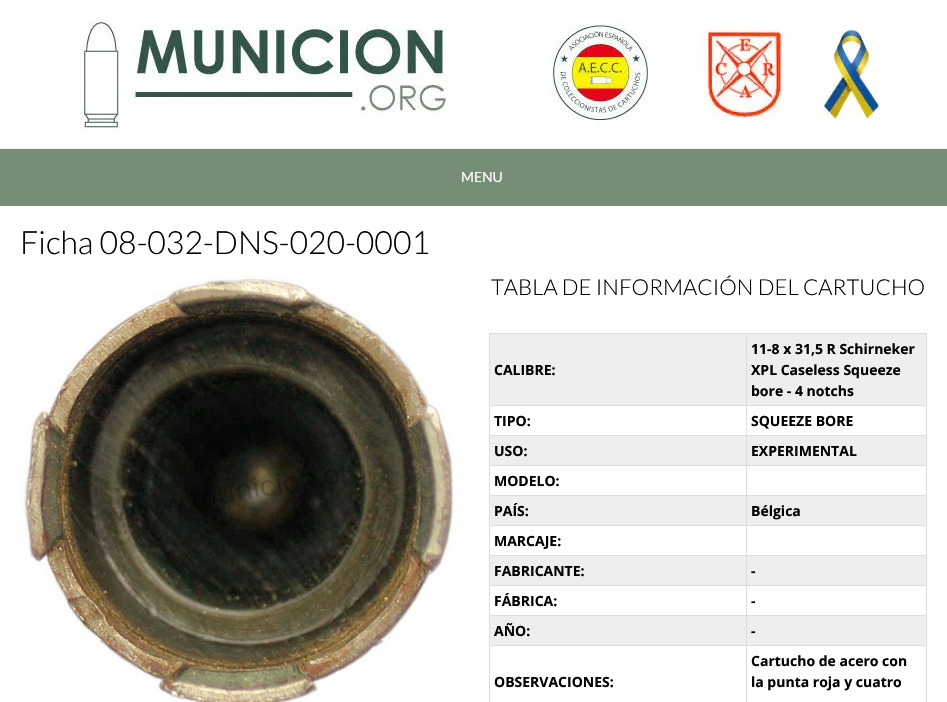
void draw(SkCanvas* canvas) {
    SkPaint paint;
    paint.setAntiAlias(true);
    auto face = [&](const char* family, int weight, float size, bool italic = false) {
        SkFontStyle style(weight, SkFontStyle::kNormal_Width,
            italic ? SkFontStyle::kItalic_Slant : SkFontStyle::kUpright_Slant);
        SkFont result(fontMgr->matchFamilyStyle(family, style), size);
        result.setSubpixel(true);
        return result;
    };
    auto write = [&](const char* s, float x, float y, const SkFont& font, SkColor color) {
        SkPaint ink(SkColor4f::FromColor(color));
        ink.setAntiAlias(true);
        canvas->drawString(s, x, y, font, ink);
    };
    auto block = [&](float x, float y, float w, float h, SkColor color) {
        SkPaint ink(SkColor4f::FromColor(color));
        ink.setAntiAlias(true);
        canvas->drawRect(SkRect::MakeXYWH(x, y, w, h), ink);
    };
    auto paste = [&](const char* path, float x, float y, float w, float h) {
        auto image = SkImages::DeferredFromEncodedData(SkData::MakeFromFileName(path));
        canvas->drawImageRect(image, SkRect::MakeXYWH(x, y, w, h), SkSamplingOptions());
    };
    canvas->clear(SK_ColorWHITE);
    paste("pic1.png", 80, 21, 801, 112);
    block(0, 149, 947, 57, SkColorSetRGB(119, 142, 118));
    block(0, 148, 947, 1, SkColorSetRGB(239, 239, 239));
    auto kFont1 = face("Lato", 400, 14);
    write("MENU", 461, 182, kFont1, SK_ColorWHITE);
    auto kFont2 = face("Lato", 300, 32);
    write("Ficha 08-032-DNS-020-0001", 20, 254, kFont2, SK_ColorBLACK);
    paste("pic2.png", 20, 276, 435, 426);
    auto kFont3 = face("Lato", 300, 22);
    write("TABLA DE INFORMACIÓN DEL CARTUCHO", 491, 295, kFont3, SK_ColorBLACK);
    block(490, 334, 436, 71, SkColorSetRGB(238, 238, 238));
    block(489, 333, 438, 1, SkColorSetRGB(221, 221, 221));
    block(489, 405, 438, 1, SkColorSetRGB(221, 221, 221));
    block(489, 435, 438, 1, SkColorSetRGB(221, 221, 221));
    block(489, 465, 438, 1, SkColorSetRGB(221, 221, 221));
    block(489, 495, 438, 1, SkColorSetRGB(221, 221, 221));
    block(489, 525, 438, 1, SkColorSetRGB(221, 221, 221));
    block(489, 555, 438, 1, SkColorSetRGB(221, 221, 221));
    block(489, 585, 438, 1, SkColorSetRGB(221, 221, 221));
    block(489, 615, 438, 1, SkColorSetRGB(221, 221, 221));
    block(489, 645, 438, 1, SkColorSetRGB(221, 221, 221));
    block(926, 645, 1, 57, SkColorSetRGB(221, 221, 221));
    block(926, 615, 1, 31, SkColorSetRGB(221, 221, 221));
    block(926, 585, 1, 31, SkColorSetRGB(221, 221, 221));
    block(926, 555, 1, 31, SkColorSetRGB(221, 221, 221));
    block(926, 525, 1, 31, SkColorSetRGB(221, 221, 221));
    block(926, 495, 1, 31, SkColorSetRGB(221, 221, 221));
    block(926, 465, 1, 31, SkColorSetRGB(221, 221, 221));
    block(926, 435, 1, 31, SkColorSetRGB(221, 221, 221));
    block(926, 405, 1, 31, SkColorSetRGB(221, 221, 221));
    block(926, 333, 1, 73, SkColorSetRGB(221, 221, 221));
    block(489, 645, 1, 57, SkColorSetRGB(221, 221, 221));
    block(489, 615, 1, 31, SkColorSetRGB(221, 221, 221));
    block(489, 585, 1, 31, SkColorSetRGB(221, 221, 221));
    block(489, 555, 1, 31, SkColorSetRGB(221, 221, 221));
    block(489, 525, 1, 31, SkColorSetRGB(221, 221, 221));
    block(489, 495, 1, 31, SkColorSetRGB(221, 221, 221));
    block(489, 465, 1, 31, SkColorSetRGB(221, 221, 221));
    block(489, 435, 1, 31, SkColorSetRGB(221, 221, 221));
    block(489, 405, 1, 31, SkColorSetRGB(221, 221, 221));
    block(489, 333, 1, 73, SkColorSetRGB(221, 221, 221));
    auto kFont4 = face("Open Sans", 700, 14);
    write("CALIBRE:", 494, 375, kFont4, SK_ColorBLACK);
    write("11-8 x 31,5 R Schirneker", 751, 354, kFont4, SK_ColorBLACK);
    write("XPL Caseless Squeeze", 751, 375, kFont4, SK_ColorBLACK);
    write("bore - 4 notchs", 751, 396, kFont4, SK_ColorBLACK);
    write("TIPO:", 494, 426, kFont4, SK_ColorBLACK);
    write("SQUEEZE BORE", 751, 426, kFont4, SK_ColorBLACK);
    block(490, 436, 436, 29, SkColorSetRGB(238, 238, 238));
    write("USO:", 494, 456, kFont4, SK_ColorBLACK);
    write("EXPERIMENTAL", 751, 456, kFont4, SK_ColorBLACK);
    write("MODELO:", 494, 486, kFont4, SK_ColorBLACK);
    block(490, 496, 436, 29, SkColorSetRGB(238, 238, 238));
    write("PAÍS:", 494, 516, kFont4, SK_ColorBLACK);
    write("Bélgica", 751, 516, kFont4, SK_ColorBLACK);
    write("MARCAJE:", 494, 546, kFont4, SK_ColorBLACK);
    block(490, 556, 436, 29, SkColorSetRGB(238, 238, 238));
    write("FABRICANTE:", 494, 576, kFont4, SK_ColorBLACK);
    write("-", 751, 576, kFont4, SK_ColorBLACK);
    write("FÁBRICA:", 494, 606, kFont4, SK_ColorBLACK);
    write("-", 751, 606, kFont4, SK_ColorBLACK);
    block(490, 616, 436, 29, SkColorSetRGB(238, 238, 238));
    write("AÑO:", 494, 636, kFont4, SK_ColorBLACK);
    write("-", 751, 636, kFont4, SK_ColorBLACK);
    write("OBSERVACIONES:", 494, 687, kFont4, SK_ColorBLACK);
    block(746, 333, 1, 369, SkColorSetRGB(221, 221, 221));
    write("Cartucho de acero con", 751, 666, kFont4, SK_ColorBLACK);
    write("la punta roja y cuatro", 751, 687, kFont4, SK_ColorBLACK);
}
